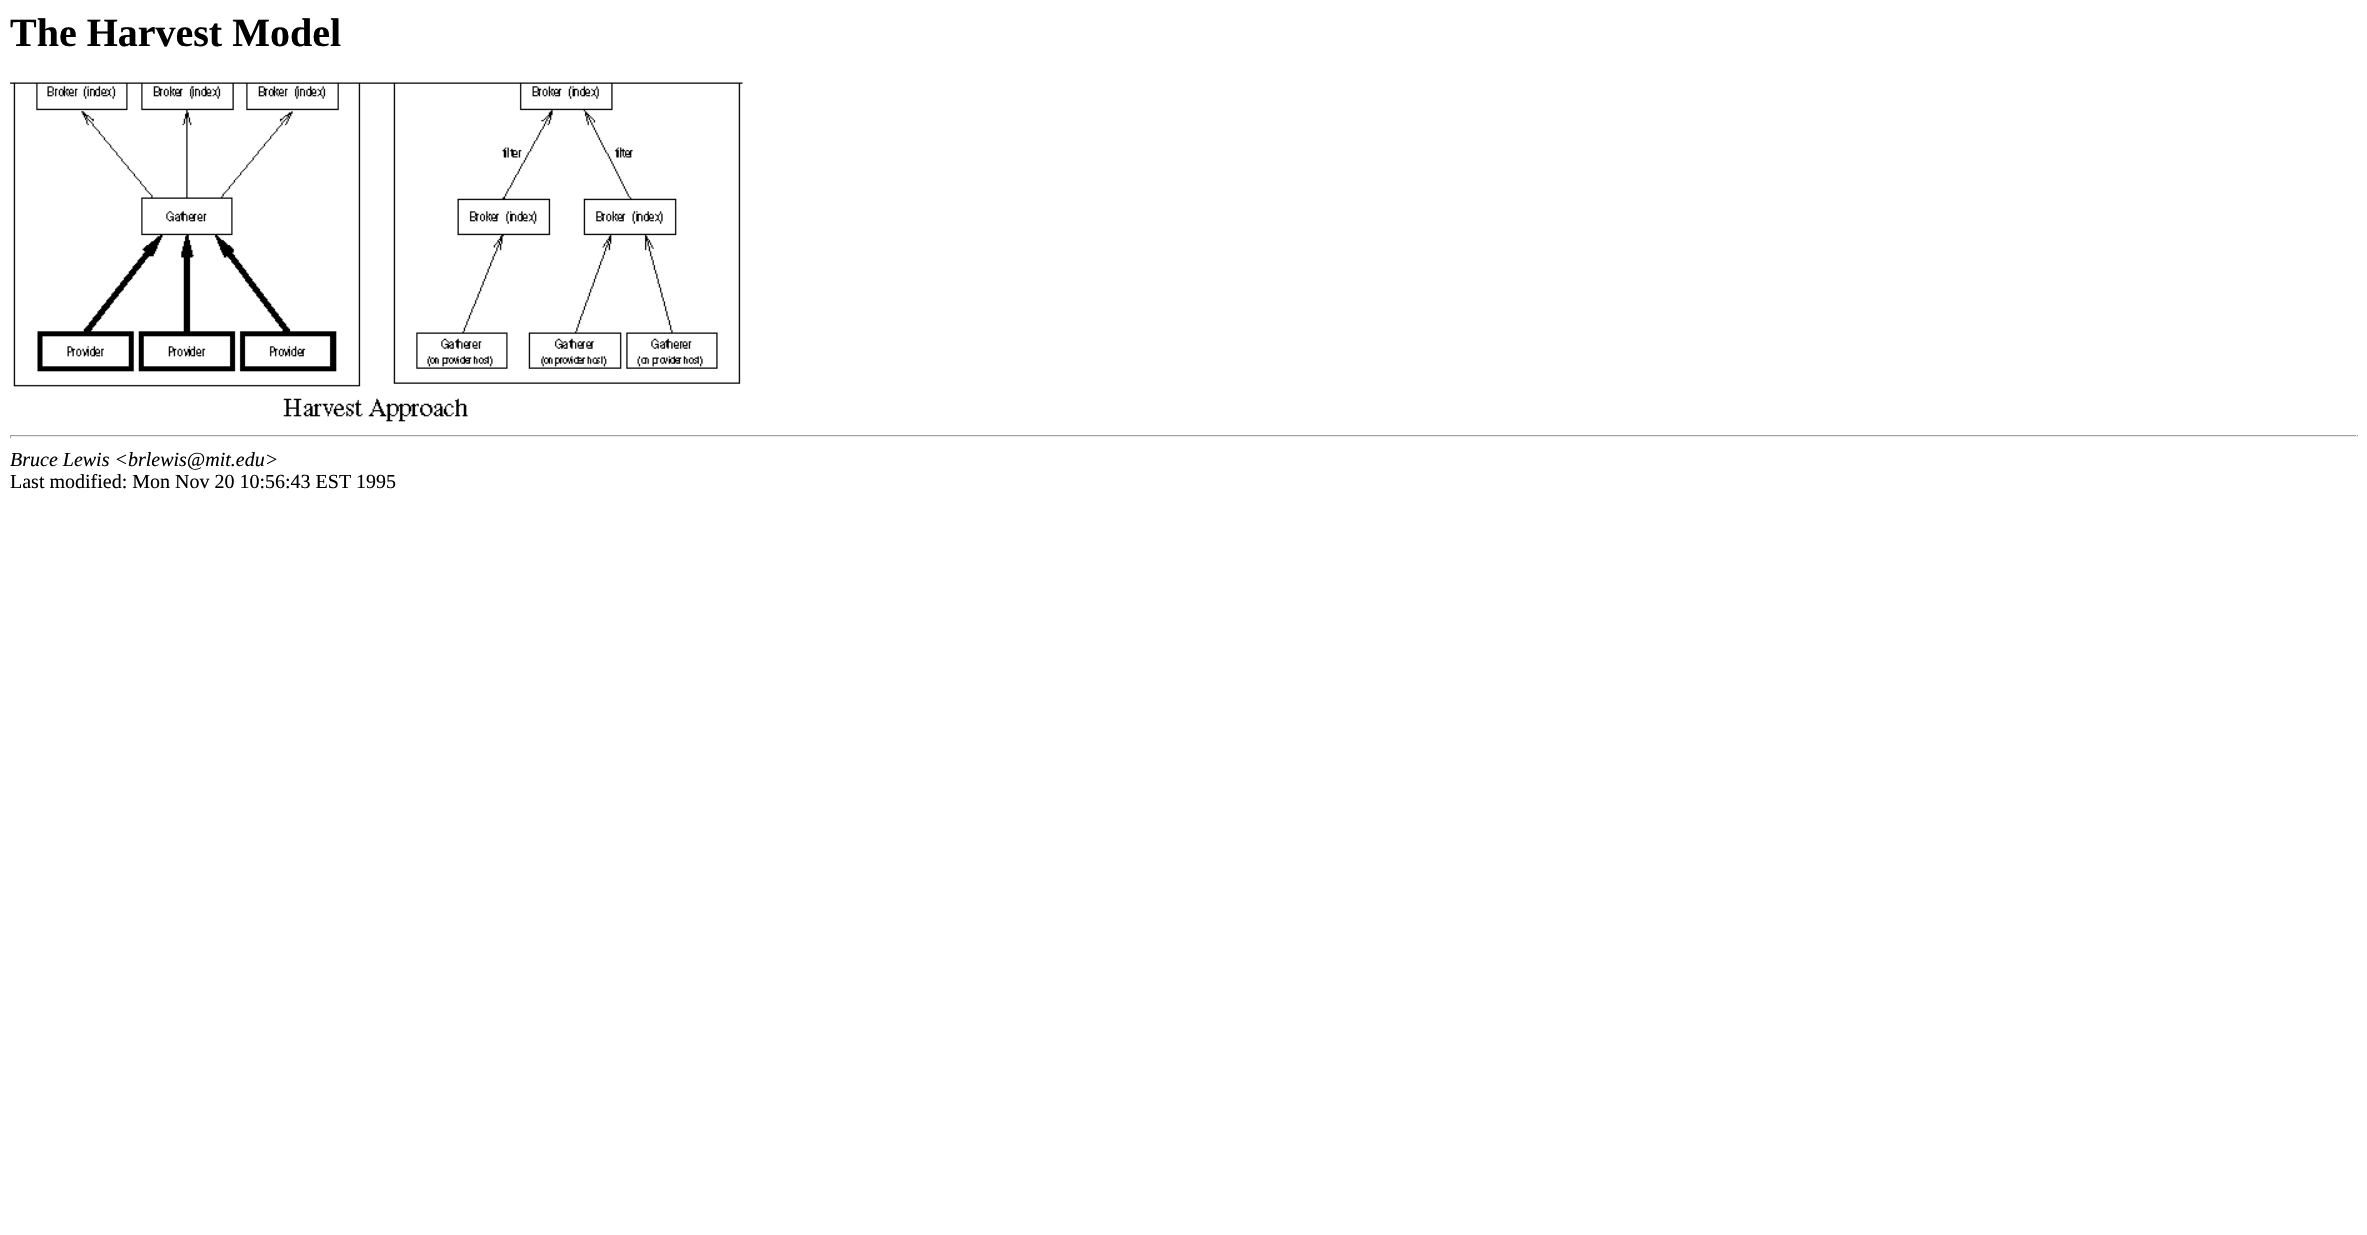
void draw(SkCanvas* canvas) {
    SkPaint paint;
    paint.setAntiAlias(true);
    auto face = [&](const char* family, int weight, float size, bool italic = false) {
        SkFontStyle style(weight, SkFontStyle::kNormal_Width,
            italic ? SkFontStyle::kItalic_Slant : SkFontStyle::kUpright_Slant);
        SkFont result(fontMgr->matchFamilyStyle(family, style), size);
        result.setSubpixel(true);
        return result;
    };
    auto write = [&](const char* s, float x, float y, const SkFont& font, SkColor color) {
        SkPaint ink(SkColor4f::FromColor(color));
        ink.setAntiAlias(true);
        canvas->drawString(s, x, y, font, ink);
    };
    auto block = [&](float x, float y, float w, float h, SkColor color) {
        SkPaint ink(SkColor4f::FromColor(color));
        ink.setAntiAlias(true);
        canvas->drawRect(SkRect::MakeXYWH(x, y, w, h), ink);
    };
    auto paste = [&](const char* path, float x, float y, float w, float h) {
        auto image = SkImages::DeferredFromEncodedData(SkData::MakeFromFileName(path));
        canvas->drawImageRect(image, SkRect::MakeXYWH(x, y, w, h), SkSamplingOptions());
    };
    canvas->clear(SK_ColorWHITE);
    auto kFont1 = face("Liberation Serif", 700, 40);
    write("The Harvest Model", 10, 46, kFont1, SK_ColorBLACK);
    paste("pic1.png", 10, 82, 733, 340);
    block(10, 435, 2348, 1, SkColorSetRGB(159, 159, 159));
    block(2356, 435, 1, 3, SkColorSetRGB(238, 238, 238));
    block(10, 436, 2348, 1, SkColorSetRGB(238, 238, 238));
    block(10, 435, 1, 3, SkColorSetRGB(159, 159, 159));
    auto kFont2 = face("Liberation Serif", 400, 20, true);
    write("Bruce Lewis <brlewis@mit.edu>", 10, 466, kFont2, SK_ColorBLACK);
    auto kFont3 = face("Liberation Serif", 400, 20);
    write("Last modified: Mon Nov 20 10:56:43 EST 1995", 10, 488, kFont3, SK_ColorBLACK);
}
